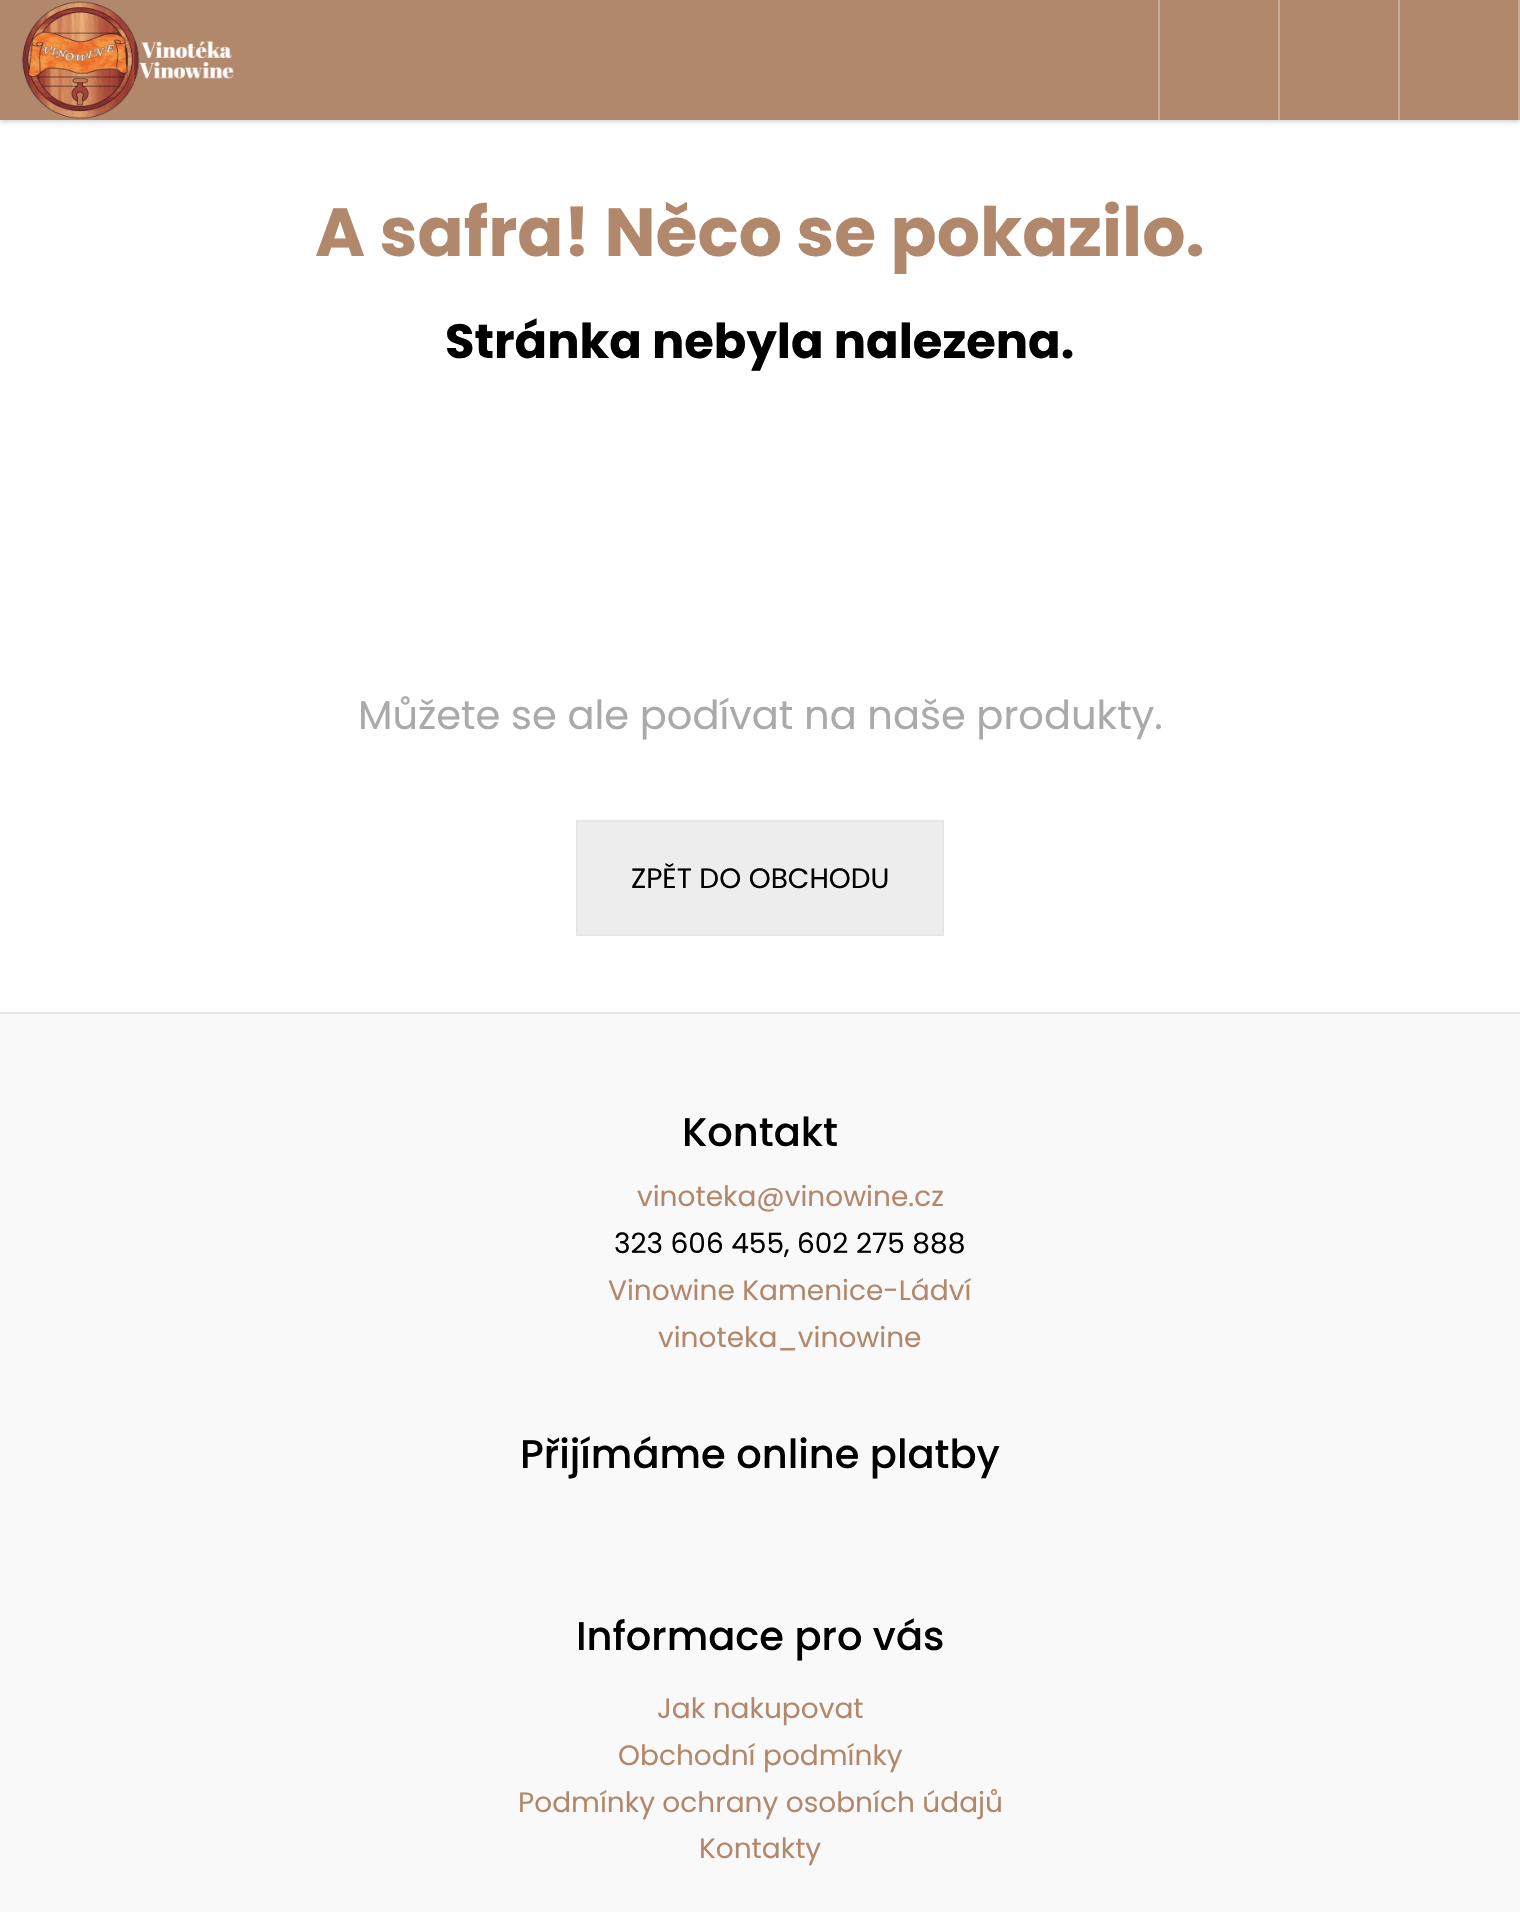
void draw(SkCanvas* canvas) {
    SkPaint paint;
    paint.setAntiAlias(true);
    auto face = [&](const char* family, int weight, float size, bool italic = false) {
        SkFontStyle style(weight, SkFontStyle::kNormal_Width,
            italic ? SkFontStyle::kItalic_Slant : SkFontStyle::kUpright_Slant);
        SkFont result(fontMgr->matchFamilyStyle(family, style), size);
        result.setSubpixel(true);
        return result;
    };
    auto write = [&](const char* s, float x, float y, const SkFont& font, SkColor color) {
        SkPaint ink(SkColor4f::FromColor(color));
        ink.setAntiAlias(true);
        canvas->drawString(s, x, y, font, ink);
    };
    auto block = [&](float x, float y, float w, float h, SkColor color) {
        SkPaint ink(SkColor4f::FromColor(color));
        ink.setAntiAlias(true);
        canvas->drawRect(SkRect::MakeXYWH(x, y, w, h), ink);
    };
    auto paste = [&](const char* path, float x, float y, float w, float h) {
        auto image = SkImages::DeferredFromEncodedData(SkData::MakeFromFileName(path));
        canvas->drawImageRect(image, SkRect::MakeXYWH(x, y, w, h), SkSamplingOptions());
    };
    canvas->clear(SK_ColorWHITE);
    paint.setColor(SkColorSetARGB(41, 0, 0, 0));
    paint.setMaskFilter(SkMaskFilter::MakeBlur(kNormal_SkBlurStyle, 2));
    canvas->drawRect(SkRect::MakeXYWH(0, 2, 1520, 120), paint);
    paint.setMaskFilter(nullptr);
    block(0, 0, 1518, 120, SkColorSetRGB(178, 136, 108));
    paste("pic1.png", 22, 1, 212, 118);
    block(1518, 0, 2, 120, SkColorSetRGB(201, 172, 152));
    block(1158, 0, 2, 120, SkColorSetRGB(201, 172, 152));
    block(1278, 0, 2, 120, SkColorSetRGB(201, 172, 152));
    block(1398, 0, 2, 120, SkColorSetRGB(201, 172, 152));
    auto kFont1 = face("Poppins", 700, 68);
    write("A safra! Něco se pokazilo.", 315, 256, kFont1, SkColorSetRGB(178, 136, 108));
    auto kFont2 = face("Poppins", 700, 48);
    write("Stránka nebyla nalezena.", 445, 358, kFont2, SK_ColorBLACK);
    auto kFont3 = face("Poppins", 400, 40);
    write("Můžete se ale podívat na naše produkty.", 358, 729, kFont3, SkColorSetRGB(170, 170, 170));
    paint.setColor(SkColorSetRGB(237, 237, 237));
    canvas->drawRect(SkRect::MakeXYWH(577, 821, 366, 114), paint);
    paint.setStyle(SkPaint::kStroke_Style);
    paint.setStrokeWidth(2);
    paint.setColor(SkColorSetRGB(230, 230, 230));
    canvas->drawRect(SkRect::MakeXYWH(577, 821, 366, 114), paint);
    auto kFont4 = face("Poppins", 400, 28);
    write("ZPĚT DO OBCHODU", 631, 888, kFont4, SK_ColorBLACK);
    block(0, 1014, 1520, 898, SkColorSetRGB(249, 249, 249));
    block(0, 1012, 1520, 2, SkColorSetRGB(230, 230, 230));
    auto kFont5 = face("Poppins", 500, 40);
    write("Kontakt", 682, 1146, kFont5, SK_ColorBLACK);
    write("vinoteka@vinowine.cz", 637, 1206, kFont4, SkColorSetRGB(178, 136, 108));
    write("323 606 455, 602 275 888", 614, 1253, kFont4, SK_ColorBLACK);
    write("Vinowine Kamenice-Ládví", 608, 1300, kFont4, SkColorSetRGB(178, 136, 108));
    write("vinoteka_vinowine", 658, 1347, kFont4, SkColorSetRGB(178, 136, 108));
    write("Přijímáme online platby", 520, 1468, kFont5, SK_ColorBLACK);
    write("Informace pro vás", 576, 1650, kFont5, SK_ColorBLACK);
    write("Jak nakupovat", 657, 1718, kFont4, SkColorSetRGB(178, 136, 108));
    write("Obchodní podmínky", 618, 1765, kFont4, SkColorSetRGB(178, 136, 108));
    write("Podmínky ochrany osobních údajů", 518, 1812, kFont4, SkColorSetRGB(178, 136, 108));
    write("Kontakty", 699, 1858, kFont4, SkColorSetRGB(178, 136, 108));
}
